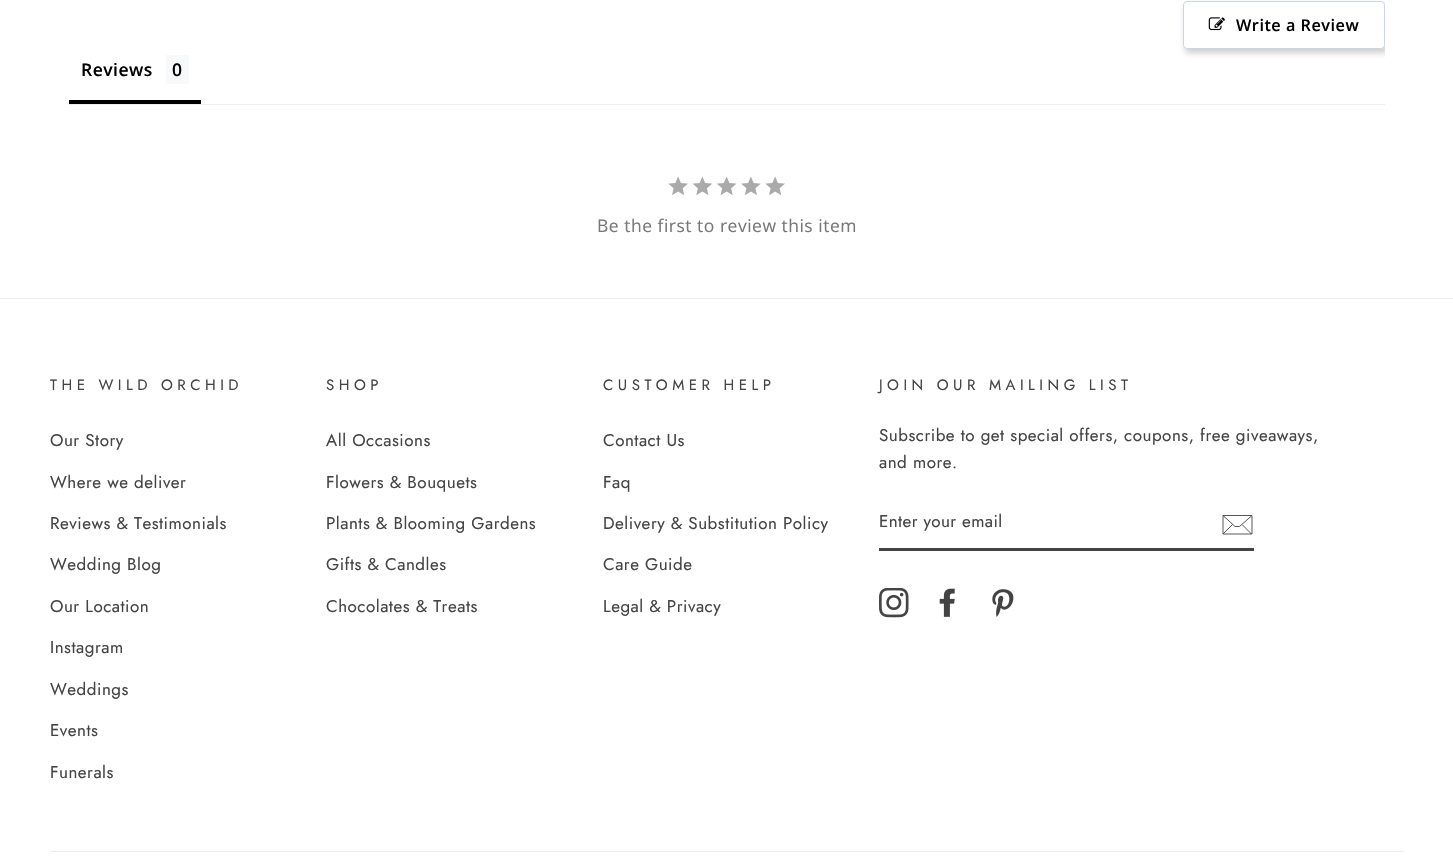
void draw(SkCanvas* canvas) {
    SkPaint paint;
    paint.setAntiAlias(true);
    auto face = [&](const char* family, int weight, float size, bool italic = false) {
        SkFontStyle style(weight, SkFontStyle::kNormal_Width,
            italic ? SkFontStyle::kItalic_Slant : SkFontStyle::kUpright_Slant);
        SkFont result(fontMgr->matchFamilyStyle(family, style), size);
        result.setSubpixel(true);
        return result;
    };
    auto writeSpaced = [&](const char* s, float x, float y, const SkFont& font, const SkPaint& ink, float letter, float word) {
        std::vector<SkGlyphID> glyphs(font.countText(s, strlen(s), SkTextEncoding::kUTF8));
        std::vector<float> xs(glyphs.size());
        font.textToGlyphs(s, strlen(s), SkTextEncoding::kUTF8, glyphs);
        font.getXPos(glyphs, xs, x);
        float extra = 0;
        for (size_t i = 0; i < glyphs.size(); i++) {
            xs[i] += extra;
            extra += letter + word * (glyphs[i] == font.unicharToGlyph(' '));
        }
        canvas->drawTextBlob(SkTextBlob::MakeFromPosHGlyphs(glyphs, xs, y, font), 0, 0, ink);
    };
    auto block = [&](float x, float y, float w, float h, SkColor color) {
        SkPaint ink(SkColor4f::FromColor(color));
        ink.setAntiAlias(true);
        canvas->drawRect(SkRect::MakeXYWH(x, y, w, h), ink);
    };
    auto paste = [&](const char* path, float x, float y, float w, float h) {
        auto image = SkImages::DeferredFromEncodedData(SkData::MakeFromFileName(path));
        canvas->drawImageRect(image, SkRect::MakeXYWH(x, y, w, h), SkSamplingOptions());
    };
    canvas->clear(SK_ColorWHITE);
    canvas->save();
    canvas->clipRect(SkRect::MakeXYWH(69, 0, 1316, 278));
    canvas->clipPath(SkPathBuilder(SkPathFillType::kEvenOdd).moveTo(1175, 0).lineTo(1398, 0).lineTo(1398, 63).lineTo(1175, 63).close().moveTo(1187, 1).lineTo(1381, 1).cubicTo(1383, 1, 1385, 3, 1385, 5).lineTo(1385, 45).cubicTo(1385, 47, 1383, 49, 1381, 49).lineTo(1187, 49).cubicTo(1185, 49, 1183, 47, 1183, 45).lineTo(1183, 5).cubicTo(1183, 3, 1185, 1, 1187, 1).close().detach(), true);
    paint.setColor(SkColorSetARGB(107, 136, 136, 136));
    paint.setMaskFilter(SkMaskFilter::MakeBlur(kNormal_SkBlurStyle, 3));
    canvas->drawRoundRect(SkRect::MakeXYWH(1185, 5, 203, 48), 4, 4, paint);
    paint.setMaskFilter(nullptr);
    canvas->restore();
    paint.setStyle(SkPaint::kStroke_Style);
    paint.setStrokeWidth(1);
    paint.setColor(SkColorSetRGB(204, 214, 224));
    canvas->drawRoundRect(SkRect::MakeXYWH(1183.5f, 1.5f, 201, 47), 3.5f, 3.5f, paint);
    paste("pic1.png", 1208, 17, 17, 14);
    auto kFont1 = face("Open Sans", 600, 16.25f);
    paint.setStyle(SkPaint::kFill_Style);
    paint.setColor(SK_ColorBLACK);
    writeSpaced("Write a Review", 1236, 31, kFont1, paint, 0.5f, 0);
    block(69, 104, 1316, 1, SkColorSetRGB(238, 238, 238));
    block(69, 100, 132, 4, SK_ColorBLACK);
    auto kFont2 = face("Open Sans", 600, 17.5f);
    writeSpaced("Reviews", 81, 76, kFont2, paint, 0.5f, 0);
    block(166, 55, 23, 29, SkColorSetRGB(248, 249, 250));
    writeSpaced("0", 172, 76, kFont2, paint, 0.5f, 0);
    paste("pic2.png", 668, 176, 117, 19);
    auto kFont3 = face("Open Sans", 400, 17.5f);
    paint.setColor(SkColorSetRGB(119, 119, 119));
    writeSpaced("Be the first to review this item", 597, 232, kFont3, paint, 0.5f, 0);
    block(0, 298, 1453, 1, SkColorSetRGB(237, 237, 237));
    auto kFont4 = face("Jost", 400, 15);
    paint.setColor(SkColorSetRGB(68, 68, 68));
    writeSpaced("THE WILD ORCHID", 50, 390, kFont4, paint, 4.5f, 0);
    auto kFont5 = face("Jost", 400, 17);
    writeSpaced("Our Story", 50, 446, kFont5, paint, 0.5f, 0);
    writeSpaced("Where we deliver", 50, 488, kFont5, paint, 0.5f, 0);
    writeSpaced("Reviews & Testimonials", 50, 529, kFont5, paint, 0.5f, 0);
    writeSpaced("Wedding Blog", 50, 570, kFont5, paint, 0.5f, 0);
    writeSpaced("Our Location", 50, 612, kFont5, paint, 0.5f, 0);
    writeSpaced("Instagram", 50, 653, kFont5, paint, 0.5f, 0);
    writeSpaced("Weddings", 50, 695, kFont5, paint, 0.5f, 0);
    writeSpaced("Events", 50, 736, kFont5, paint, 0.5f, 0);
    writeSpaced("Funerals", 50, 778, kFont5, paint, 0.5f, 0);
    writeSpaced("SHOP", 326, 390, kFont4, paint, 4.5f, 0);
    writeSpaced("All Occasions", 326, 446, kFont5, paint, 0.5f, 0);
    writeSpaced("Flowers & Bouquets", 326, 488, kFont5, paint, 0.5f, 0);
    writeSpaced("Plants & Blooming Gardens", 326, 529, kFont5, paint, 0.5f, 0);
    writeSpaced("Gifts & Candles", 326, 570, kFont5, paint, 0.5f, 0);
    writeSpaced("Chocolates & Treats", 326, 612, kFont5, paint, 0.5f, 0);
    writeSpaced("CUSTOMER HELP", 603, 390, kFont4, paint, 4.5f, 0);
    writeSpaced("Contact Us", 603, 446, kFont5, paint, 0.5f, 0);
    writeSpaced("Faq", 603, 488, kFont5, paint, 0.5f, 0);
    writeSpaced("Delivery & Substitution Policy", 603, 529, kFont5, paint, 0.5f, 0);
    writeSpaced("Care Guide", 603, 570, kFont5, paint, 0.5f, 0);
    writeSpaced("Legal & Privacy", 603, 612, kFont5, paint, 0.5f, 0);
    writeSpaced("JOIN OUR MAILING LIST", 879, 390, kFont4, paint, 4.5f, 0);
    writeSpaced("Subscribe to get special offers, coupons, free giveaways,", 879, 441, kFont5, paint, 0.5f, 0);
    writeSpaced("and more.", 879, 468, kFont5, paint, 0.5f, 0);
    block(879, 548, 375, 3, SkColorSetRGB(68, 68, 68));
    writeSpaced("Enter your email", 879, 527, kFont5, paint, 0.4f, 0);
    paint.setStyle(SkPaint::kStroke_Style);
    paint.setStrokeWidth(0.9f);
    canvas->drawPath(SkPathBuilder().moveTo(1252, 534).lineTo(1223, 534).lineTo(1223, 515.5f).lineTo(1252, 515.5f).close().moveTo(1223, 515.5f).lineTo(1235, 526.5f).lineTo(1239.5f, 526.5f).lineTo(1252, 515.5f).moveTo(1232.5f, 524.5f).lineTo(1223, 534).moveTo(1251.5f, 534).lineTo(1242, 524.5f).detach(), paint);
    paste("pic3.png", 879, 588, 30, 30);
    paste("pic4.png", 939, 588, 16, 29);
    paste("pic5.png", 992, 589, 22, 28);
    block(50, 851, 1354, 1, SkColorSetRGB(237, 237, 237));
}
